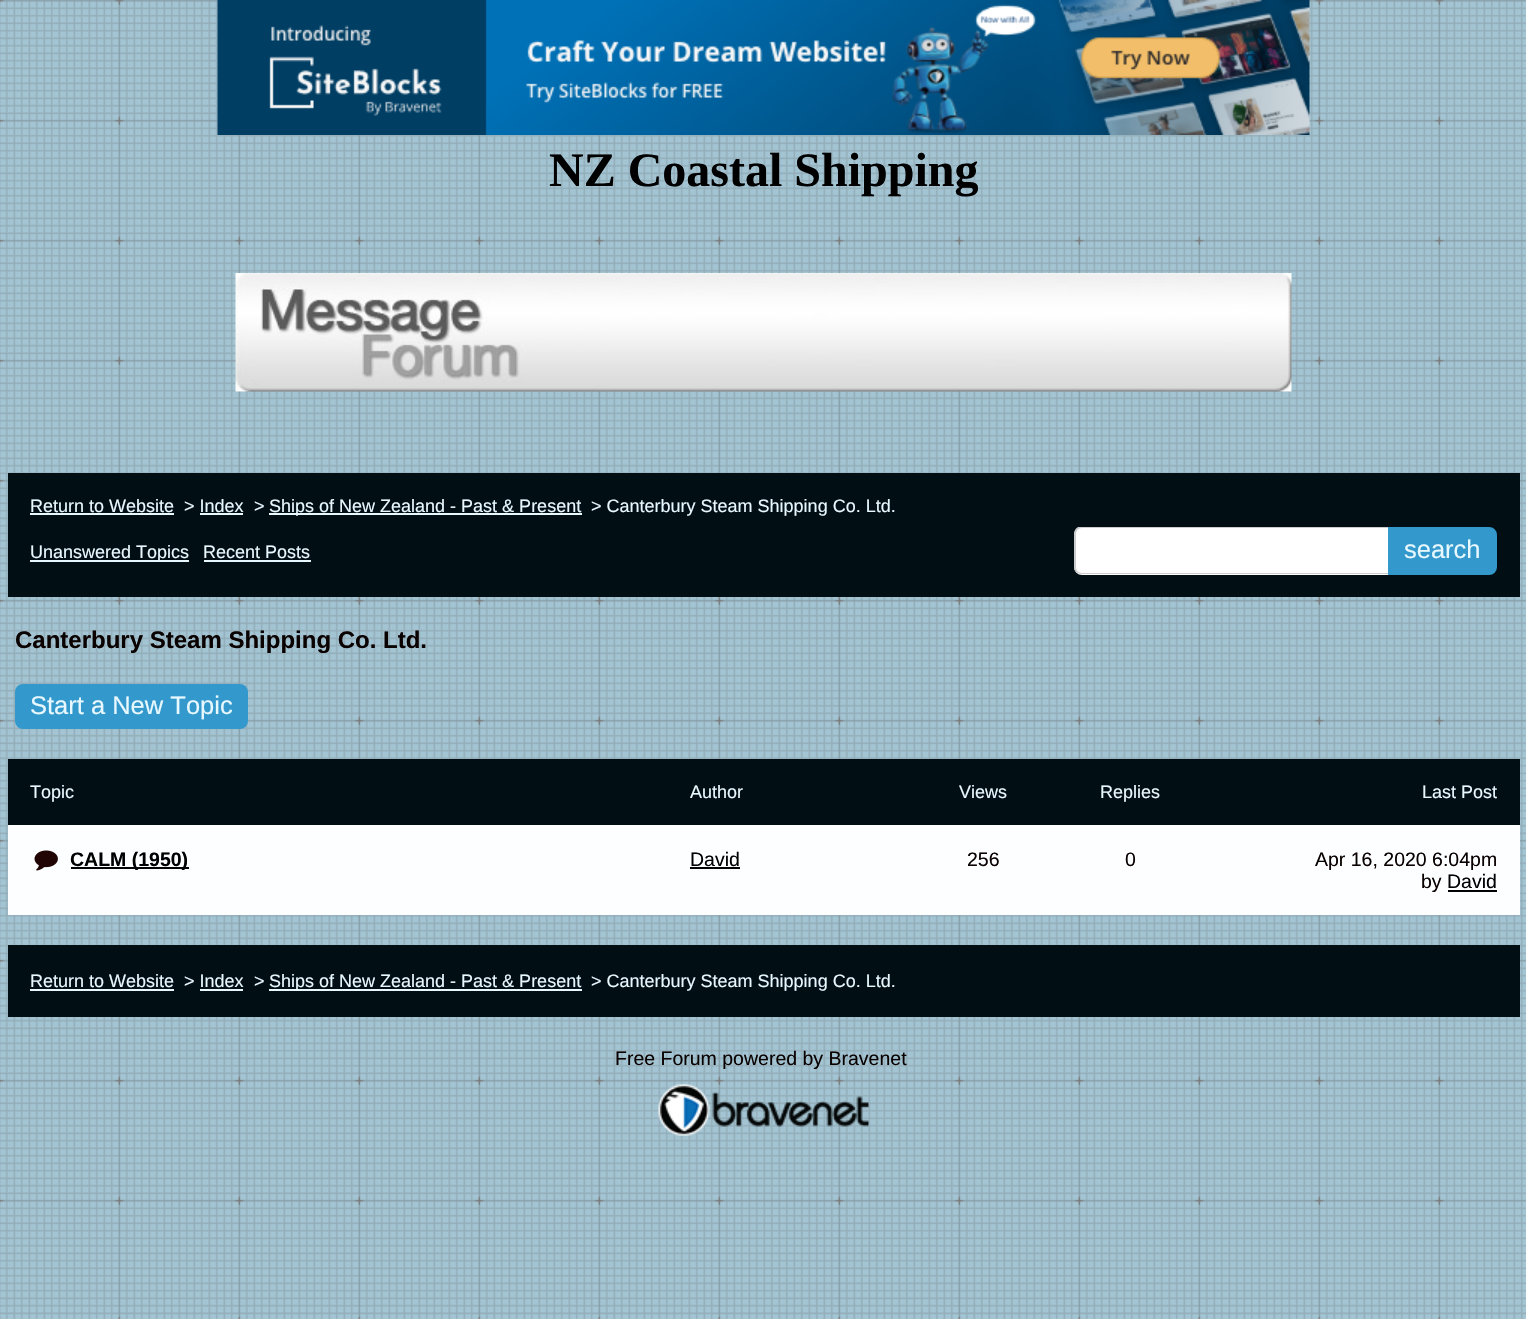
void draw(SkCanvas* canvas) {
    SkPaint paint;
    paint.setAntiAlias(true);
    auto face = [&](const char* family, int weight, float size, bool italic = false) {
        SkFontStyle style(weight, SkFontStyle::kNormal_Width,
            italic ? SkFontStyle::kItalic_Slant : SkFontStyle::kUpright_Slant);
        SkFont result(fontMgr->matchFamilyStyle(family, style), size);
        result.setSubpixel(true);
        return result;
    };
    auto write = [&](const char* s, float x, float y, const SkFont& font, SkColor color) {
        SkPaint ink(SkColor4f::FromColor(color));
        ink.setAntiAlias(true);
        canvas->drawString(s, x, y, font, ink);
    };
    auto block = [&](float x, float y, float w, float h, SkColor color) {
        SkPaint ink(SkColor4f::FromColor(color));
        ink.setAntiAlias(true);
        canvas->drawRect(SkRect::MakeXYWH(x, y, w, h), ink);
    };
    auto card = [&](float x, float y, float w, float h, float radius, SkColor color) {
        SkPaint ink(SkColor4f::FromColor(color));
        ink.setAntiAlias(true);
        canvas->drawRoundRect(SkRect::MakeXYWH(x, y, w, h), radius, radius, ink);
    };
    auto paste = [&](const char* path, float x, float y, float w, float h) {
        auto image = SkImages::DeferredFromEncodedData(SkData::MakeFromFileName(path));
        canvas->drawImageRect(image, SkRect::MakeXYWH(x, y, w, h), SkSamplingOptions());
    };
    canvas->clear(SkColorSetRGB(180, 220, 237));
    paste("pic1.png", 0, 0, 1526, 1319);
    paste("pic2.png", 217, 0, 1093, 135);
    auto kFont1 = face("Liberation Serif", 700, 48);
    write("NZ Coastal Shipping", 549, 186, kFont1, SK_ColorBLACK);
    paste("pic3.png", 235, 273, 1057, 119);
    block(8, 473, 1512, 124, SkColorSetRGB(1, 14, 20));
    auto kFont2 = face("Liberation Sans", 400, 18);
    write("Return to Website", 30, 512, kFont2, SkColorSetRGB(232, 248, 255));
    block(30, 513, 144, 2, SkColorSetRGB(232, 248, 255));
    write("> Index", 184, 512, kFont2, SkColorSetRGB(232, 248, 255));
    write(">", 254, 512, kFont2, SkColorSetRGB(232, 248, 255));
    block(269, 513, 313, 2, SkColorSetRGB(232, 248, 255));
    write("Ships of New Zealand - Past & Present", 269, 512, kFont2, SkColorSetRGB(232, 248, 255));
    write("> Canterbury Steam Shipping Co. Ltd.", 591, 512, kFont2, SkColorSetRGB(232, 248, 255));
    block(200, 513, 43, 2, SkColorSetRGB(232, 248, 255));
    block(30, 560, 159, 2, SkColorSetRGB(232, 248, 255));
    write("Unanswered Topics", 30, 558, kFont2, SkColorSetRGB(232, 248, 255));
    write("Recent Posts", 203, 558, kFont2, SkColorSetRGB(232, 248, 255));
    block(204, 560, 107, 2, SkColorSetRGB(232, 248, 255));
    card(1074, 527, 408, 48, 8, SK_ColorWHITE);
    canvas->save();
    canvas->clipRect(SkRect::MakeXYWH(1068, 527, 429, 48));
    paint.setColor(SkColorSetRGB(204, 204, 204));
    canvas->drawPath(SkPathBuilder(SkPathFillType::kEvenOdd).moveTo(1082, 526).lineTo(1474, 526).cubicTo(1479, 526, 1482, 530, 1482, 534).lineTo(1482, 567).cubicTo(1482, 571, 1479, 574, 1474, 574).lineTo(1082, 574).cubicTo(1077, 574, 1074, 571, 1074, 567).lineTo(1074, 534).cubicTo(1074, 530, 1077, 526, 1082, 526).close().moveTo(1082, 528).lineTo(1474, 528).cubicTo(1479, 528, 1482, 531, 1482, 534).lineTo(1482, 567).cubicTo(1482, 570, 1479, 573, 1474, 573).lineTo(1082, 573).cubicTo(1078, 573, 1076, 570, 1076, 567).lineTo(1076, 534).cubicTo(1076, 531, 1078, 528, 1082, 528).close().detach(), paint);
    canvas->restore();
    paint.setColor(SkColorSetRGB(51, 153, 204));
    canvas->drawPath(SkPathBuilder().moveTo(1389, 528).lineTo(1489, 528).cubicTo(1493, 528, 1496, 531, 1496, 535).lineTo(1496, 567).cubicTo(1496, 571, 1493, 574, 1489, 574).lineTo(1389, 574).close().detach(), paint);
    paint.setStyle(SkPaint::kStroke_Style);
    paint.setStrokeWidth(2);
    canvas->drawPath(SkPathBuilder().moveTo(1389, 528).lineTo(1489, 528).cubicTo(1493, 528, 1496, 531, 1496, 535).lineTo(1496, 567).cubicTo(1496, 571, 1493, 574, 1489, 574).lineTo(1389, 574).close().detach(), paint);
    auto kFont3 = face("Liberation Sans", 400, 25.5f);
    write("search", 1404, 558, kFont3, SkColorSetRGB(232, 248, 255));
    auto kFont4 = face("Liberation Sans", 700, 24);
    write("Canterbury Steam Shipping Co. Ltd.", 15, 648, kFont4, SkColorSetRGB(10, 1, 1));
    card(15, 684, 233, 45, 8, SkColorSetRGB(51, 153, 204));
    write("Start a New Topic", 30, 714, kFont3, SkColorSetRGB(232, 248, 255));
    block(8, 759, 1512, 66, SkColorSetRGB(1, 14, 20));
    write("Topic", 30, 798, kFont2, SkColorSetRGB(232, 248, 255));
    write("Author", 690, 798, kFont2, SkColorSetRGB(232, 248, 255));
    write("Views", 959, 798, kFont2, SkColorSetRGB(232, 248, 255));
    write("Replies", 1100, 798, kFont2, SkColorSetRGB(232, 248, 255));
    write("Last Post", 1422, 798, kFont2, SkColorSetRGB(232, 248, 255));
    block(8, 825, 1512, 90, SkColorSetRGB(252, 254, 255));
    paste("pic4.png", 34, 850, 24, 21);
    block(71, 867, 118, 2, SkColorSetRGB(0, 2, 3));
    auto kFont5 = face("Liberation Sans", 700, 19.5f);
    write("CALM (1950)", 70, 866, kFont5, SK_ColorBLACK);
    auto kFont6 = face("Liberation Sans", 400, 19.5f);
    write("David", 690, 866, kFont6, SK_ColorBLACK);
    block(690, 867, 50, 2, SkColorSetRGB(0, 2, 3));
    write("256", 967, 866, kFont6, SkColorSetRGB(10, 1, 1));
    write("0", 1125, 866, kFont6, SkColorSetRGB(10, 1, 1));
    write("Apr 16, 2020 6:04pm", 1315, 866, kFont6, SkColorSetRGB(10, 1, 1));
    write("by", 1421, 888, kFont6, SkColorSetRGB(10, 1, 1));
    write("David", 1447, 888, kFont6, SK_ColorBLACK);
    block(1448, 890, 49, 2, SkColorSetRGB(0, 2, 3));
    block(8, 945, 1512, 72, SkColorSetRGB(1, 14, 20));
    write("Return to Website", 30, 987, kFont2, SkColorSetRGB(232, 248, 255));
    block(30, 989, 144, 2, SkColorSetRGB(232, 248, 255));
    write("> Index", 184, 987, kFont2, SkColorSetRGB(232, 248, 255));
    write(">", 254, 987, kFont2, SkColorSetRGB(232, 248, 255));
    block(269, 989, 313, 2, SkColorSetRGB(232, 248, 255));
    write("Ships of New Zealand - Past & Present", 269, 987, kFont2, SkColorSetRGB(232, 248, 255));
    write("> Canterbury Steam Shipping Co. Ltd.", 591, 987, kFont2, SkColorSetRGB(232, 248, 255));
    block(200, 989, 43, 2, SkColorSetRGB(232, 248, 255));
    write("Free Forum powered by Bravenet", 615, 1065, kFont6, SkColorSetRGB(10, 1, 1));
    paste("pic5.png", 658, 1084, 211, 52);
}
